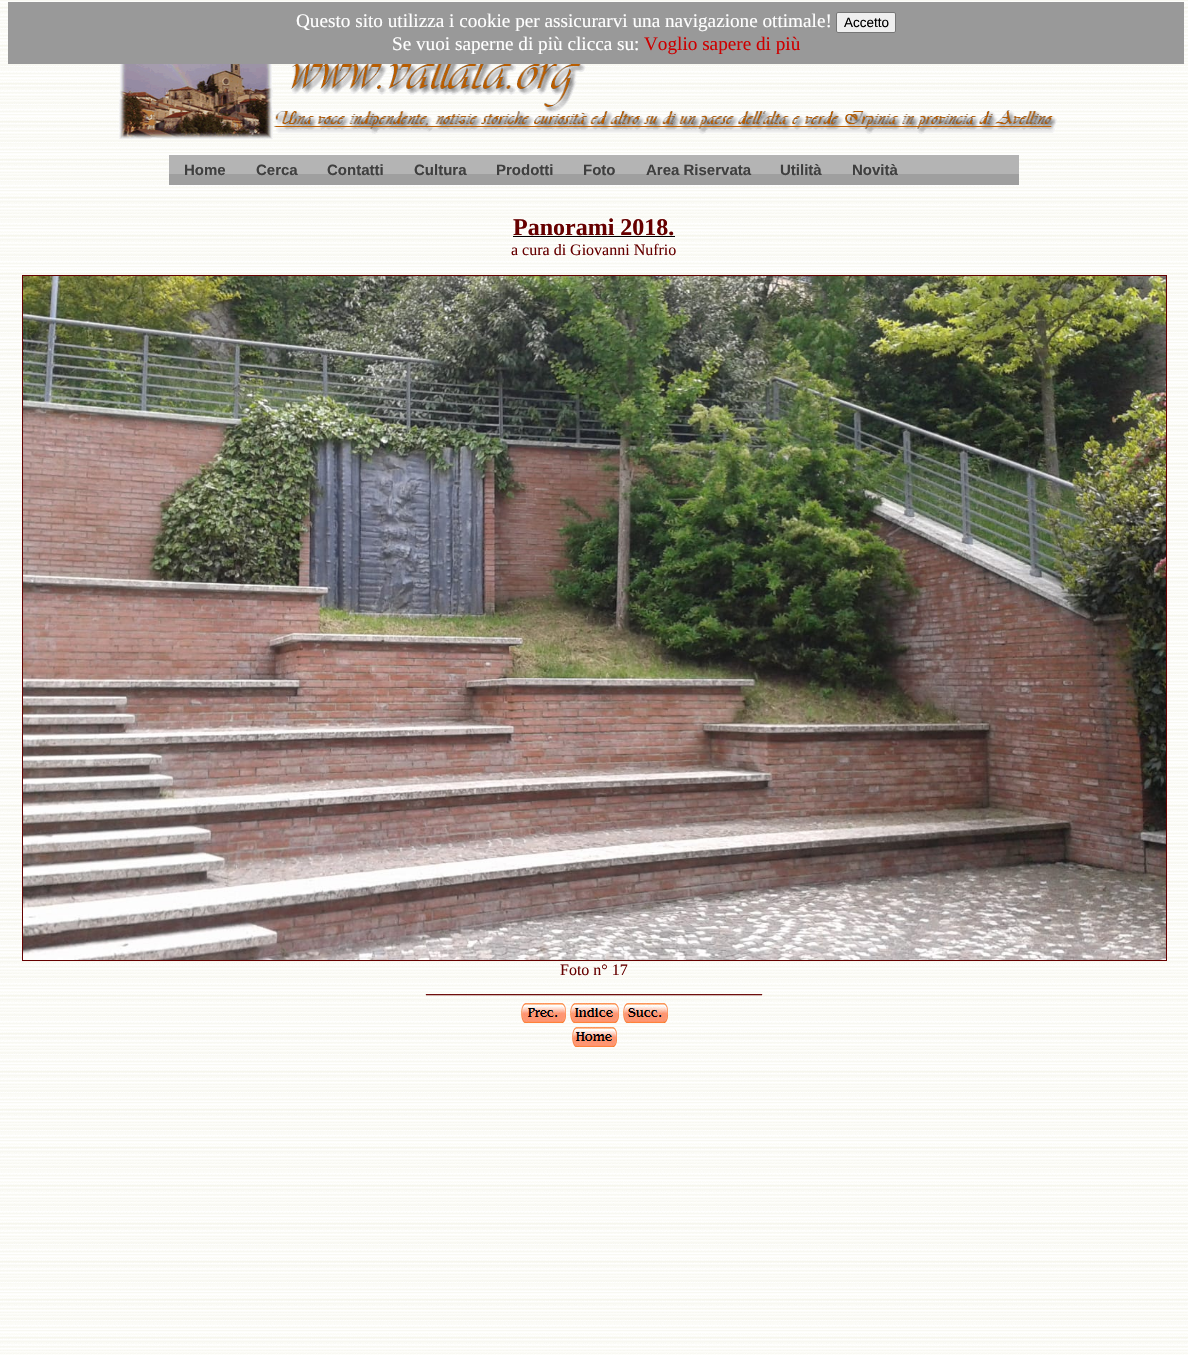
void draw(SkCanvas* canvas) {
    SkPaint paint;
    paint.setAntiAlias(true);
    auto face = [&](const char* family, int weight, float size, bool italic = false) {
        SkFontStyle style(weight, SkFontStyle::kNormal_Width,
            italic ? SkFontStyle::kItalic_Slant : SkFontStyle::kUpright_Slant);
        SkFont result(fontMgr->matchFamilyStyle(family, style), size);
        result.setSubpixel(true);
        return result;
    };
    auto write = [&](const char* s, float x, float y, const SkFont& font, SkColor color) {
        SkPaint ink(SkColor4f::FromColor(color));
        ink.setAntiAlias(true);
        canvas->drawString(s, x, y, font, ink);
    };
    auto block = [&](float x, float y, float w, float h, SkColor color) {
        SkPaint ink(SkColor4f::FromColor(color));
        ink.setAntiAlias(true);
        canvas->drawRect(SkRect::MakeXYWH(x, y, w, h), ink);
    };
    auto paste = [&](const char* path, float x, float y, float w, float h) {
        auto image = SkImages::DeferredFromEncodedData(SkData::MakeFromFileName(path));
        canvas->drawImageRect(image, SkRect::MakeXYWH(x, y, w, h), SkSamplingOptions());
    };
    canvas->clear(SK_ColorWHITE);
    paste("pic1.png", 0, 0, 1188, 1355);
    block(8, 2, 1176, 62, SkColorSetRGB(153, 153, 153));
    auto kFont1 = face("Liberation Serif", 400, 19.2f);
    write("Questo sito utilizza i cookie per assicurarvi una navigazione ottimale!", 296, 27, kFont1, SK_ColorWHITE);
    paint.setColor(SkColorSetRGB(239, 239, 239));
    canvas->drawRoundRect(SkRect::MakeXYWH(836.5f, 12.5f, 59, 20), 1.5f, 1.5f, paint);
    paint.setStyle(SkPaint::kStroke_Style);
    paint.setStrokeWidth(1);
    paint.setColor(SkColorSetRGB(118, 118, 118));
    canvas->drawRoundRect(SkRect::MakeXYWH(836.5f, 12.5f, 59, 20), 1.5f, 1.5f, paint);
    auto kFont2 = face("Liberation Sans", 400, 13.5f);
    write("Accetto", 844, 27, kFont2, SK_ColorBLACK);
    write("Se vuoi saperne di più clicca su:", 392, 50, kFont1, SK_ColorWHITE);
    write("Voglio sapere di più", 644, 50, kFont1, SkColorSetRGB(204, 0, 0));
    paste("pic2.png", 119, 64, 938, 76);
    paste("pic3.png", 169, 155, 850, 30);
    auto kFont3 = face("Liberation Sans", 700, 15);
    write("Home", 184, 175, kFont3, SkColorSetRGB(63, 63, 63));
    write("Cerca", 256, 175, kFont3, SkColorSetRGB(63, 63, 63));
    write("Contatti", 327, 175, kFont3, SkColorSetRGB(63, 63, 63));
    write("Cultura", 414, 175, kFont3, SkColorSetRGB(63, 63, 63));
    write("Prodotti", 496, 175, kFont3, SkColorSetRGB(63, 63, 63));
    write("Foto", 583, 175, kFont3, SkColorSetRGB(63, 63, 63));
    write("Area Riservata", 646, 175, kFont3, SkColorSetRGB(63, 63, 63));
    write("Utilità", 780, 175, kFont3, SkColorSetRGB(63, 63, 63));
    write("Novità", 852, 175, kFont3, SkColorSetRGB(63, 63, 63));
    auto kFont4 = face("Liberation Serif", 700, 24);
    write("Panorami 2018.", 513, 235, kFont4, SkColorSetRGB(102, 0, 0));
    block(513, 236, 162, 1, SK_ColorBLACK);
    auto kFont5 = face("Liberation Serif", 400, 16);
    write("a cura di Giovanni Nufrio", 511, 255, kFont5, SkColorSetRGB(102, 0, 0));
    paint.setColor(SkColorSetRGB(102, 0, 0));
    canvas->drawRect(SkRect::MakeXYWH(22.5f, 275.5f, 1144, 685), paint);
    paste("pic4.png", 23, 276, 1143, 684);
    write("Foto n° 17", 560, 975, kFont5, SkColorSetRGB(102, 0, 0));
    auto kFont6 = face("Liberation Serif", 700, 16);
    write("__________________________________________", 426, 993, kFont6, SkColorSetRGB(102, 0, 0));
    paste("pic5.png", 521, 1003, 45, 20);
    paste("pic6.png", 570, 1003, 49, 20);
    paste("pic7.png", 623, 1003, 45, 20);
    paste("pic8.png", 572, 1027, 45, 20);
}
